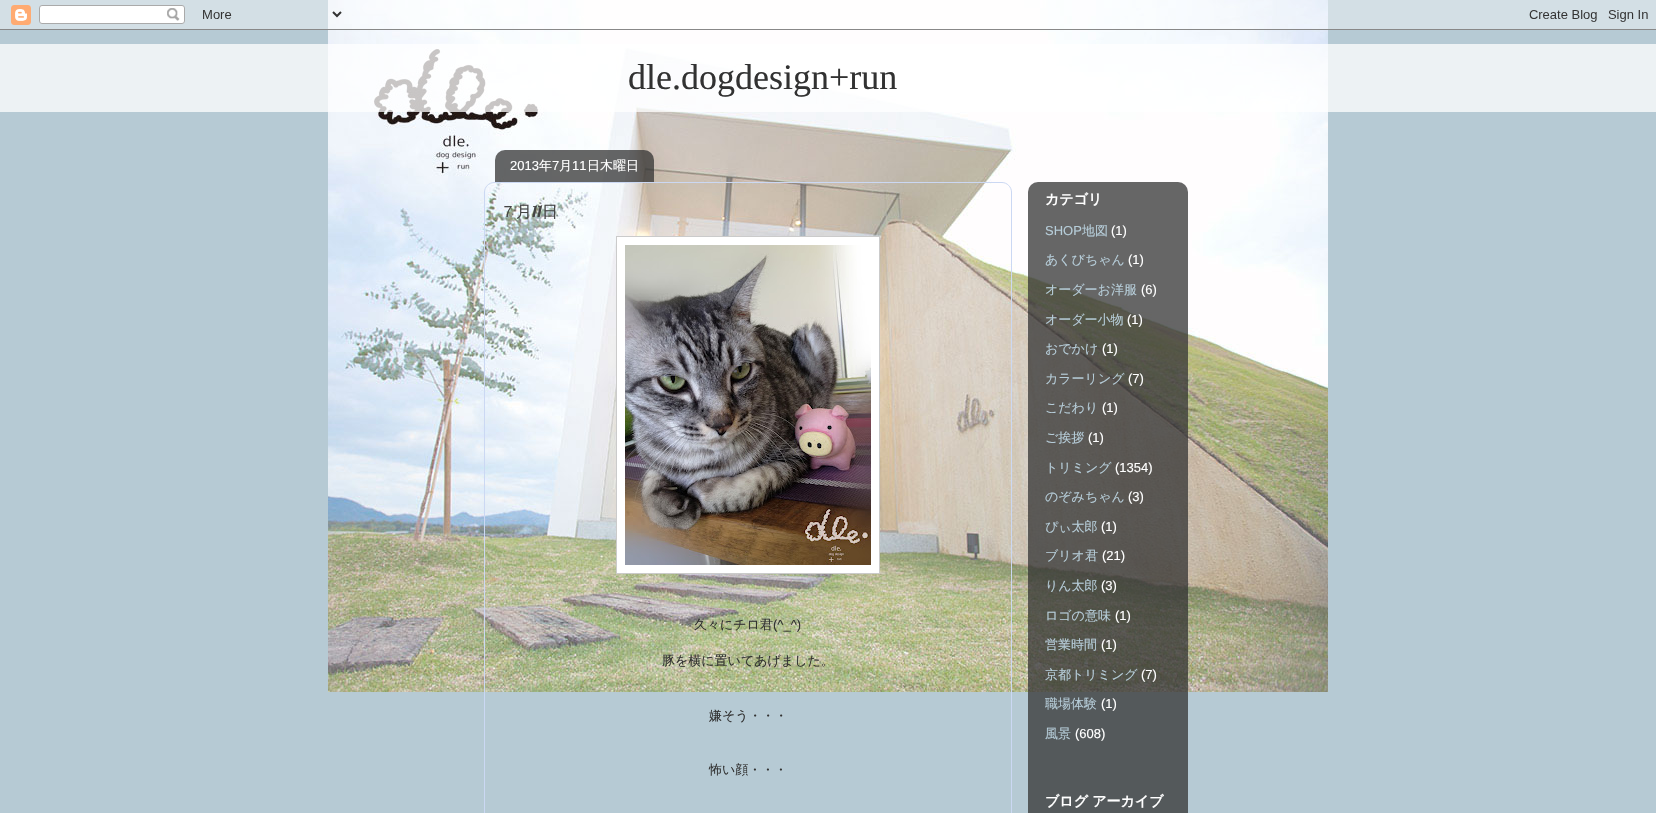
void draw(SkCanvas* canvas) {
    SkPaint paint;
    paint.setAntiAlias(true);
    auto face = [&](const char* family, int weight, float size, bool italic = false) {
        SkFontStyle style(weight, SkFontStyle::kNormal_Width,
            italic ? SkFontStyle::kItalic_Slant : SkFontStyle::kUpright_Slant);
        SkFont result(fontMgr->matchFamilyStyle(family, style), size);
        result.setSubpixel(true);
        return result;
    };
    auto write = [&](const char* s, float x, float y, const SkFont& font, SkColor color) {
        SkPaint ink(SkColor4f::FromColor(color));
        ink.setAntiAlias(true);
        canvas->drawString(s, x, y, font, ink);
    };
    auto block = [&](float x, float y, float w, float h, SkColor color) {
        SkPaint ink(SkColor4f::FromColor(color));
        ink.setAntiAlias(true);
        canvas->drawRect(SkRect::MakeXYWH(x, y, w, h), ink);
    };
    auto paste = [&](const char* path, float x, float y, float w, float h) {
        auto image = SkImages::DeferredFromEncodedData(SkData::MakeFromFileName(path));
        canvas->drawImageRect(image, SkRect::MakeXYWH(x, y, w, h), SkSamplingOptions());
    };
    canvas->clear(SkColorSetRGB(182, 202, 212));
    paste("pic2.png", 328, 0, 1000, 692);
    paste("pic1.png", 0, 0, 1656, 30);
    block(0, 44, 1656, 68, SkColorSetARGB(191, 255, 255, 255));
    auto kFont1 = face("Liberation Serif", 400, 36);
    write("dle.dogdesign+run", 628, 89, kFont1, SkColorSetRGB(50, 50, 50));
    paint.setStyle(SkPaint::kStroke_Style);
    paint.setStrokeWidth(1);
    paint.setColor(SkColorSetRGB(203, 216, 243));
    canvas->drawPath(SkPathBuilder().moveTo(494, 182.5f).lineTo(1002, 182.5f).cubicTo(1007, 182.5f, 1011.5f, 187, 1011.5f, 192).lineTo(1011.5f, 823.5f).lineTo(484.5f, 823.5f).lineTo(484.5f, 192).cubicTo(484.5f, 187, 489, 182.5f, 494, 182.5f).close().detach(), paint);
    paste("pic3.png", 495, 150, 159, 32);
    auto kFont2 = face("Liberation Sans", 400, 13);
    write("2013", 510, 170, kFont2, SK_ColorWHITE);
    auto kFont3 = face("WenQuanYi Zen Hei", 500, 13);
    write("年", 539, 170, kFont3, SK_ColorWHITE);
    write("7", 552, 170, kFont2, SK_ColorWHITE);
    write("月", 559, 170, kFont3, SK_ColorWHITE);
    write("11", 572, 170, kFont2, SK_ColorWHITE);
    write("日木曜日", 587, 170, kFont3, SK_ColorWHITE);
    auto kFont4 = face("WenQuanYi Zen Hei", 500, 16);
    write("７月", 500, 217, kFont4, SkColorSetRGB(68, 68, 68));
    auto kFont5 = face("Lobster", 400, 16);
    write("11", 532, 217, kFont5, SkColorSetRGB(68, 68, 68));
    write("日", 542, 217, kFont4, SkColorSetRGB(68, 68, 68));
    paint.setStyle(SkPaint::kFill_Style);
    paint.setColor(SK_ColorWHITE);
    canvas->drawRect(SkRect::MakeXYWH(616.5f, 236.5f, 263, 337), paint);
    paint.setStyle(SkPaint::kStroke_Style);
    paint.setColor(SkColorSetRGB(203, 203, 203));
    canvas->drawRect(SkRect::MakeXYWH(616.5f, 236.5f, 263, 337), paint);
    paste("pic4.png", 625, 245, 246, 320);
    write("久々にチロ君", 694, 629, kFont3, SkColorSetRGB(50, 50, 50));
    write("(^_^)", 773, 629, kFont2, SkColorSetRGB(50, 50, 50));
    write("豚を横に置いてあげました。", 662, 665, kFont3, SkColorSetRGB(50, 50, 50));
    write("嫌そう・・・", 709, 720, kFont3, SkColorSetRGB(50, 50, 50));
    write("怖い顔・・・", 709, 774, kFont3, SkColorSetRGB(50, 50, 50));
    paste("pic5.png", 1028, 182, 160, 631);
    auto kFont6 = face("WenQuanYi Zen Hei", 700, 14);
    write("カテゴリ", 1045, 204, kFont6, SK_ColorWHITE);
    write("SHOP", 1045, 235, kFont2, SkColorSetRGB(182, 205, 217));
    write("地図", 1082, 235, kFont3, SkColorSetRGB(182, 205, 217));
    write("(1)", 1111, 235, kFont2, SK_ColorWHITE);
    write("あくびちゃん", 1045, 264, kFont3, SkColorSetRGB(182, 205, 217));
    write("(1)", 1128, 264, kFont2, SK_ColorWHITE);
    write("オーダーお洋服", 1045, 294, kFont3, SkColorSetRGB(182, 205, 217));
    write("(6)", 1141, 294, kFont2, SK_ColorWHITE);
    write("オーダー小物", 1045, 324, kFont3, SkColorSetRGB(182, 205, 217));
    write("(1)", 1127, 324, kFont2, SK_ColorWHITE);
    write("おでかけ", 1045, 353, kFont3, SkColorSetRGB(182, 205, 217));
    write("(1)", 1102, 353, kFont2, SK_ColorWHITE);
    write("カラーリング", 1045, 383, kFont3, SkColorSetRGB(182, 205, 217));
    write("(7)", 1128, 383, kFont2, SK_ColorWHITE);
    write("こだわり", 1045, 412, kFont3, SkColorSetRGB(182, 205, 217));
    write("(1)", 1102, 412, kFont2, SK_ColorWHITE);
    write("ご挨拶", 1045, 442, kFont3, SkColorSetRGB(182, 205, 217));
    write("(1)", 1088, 442, kFont2, SK_ColorWHITE);
    write("トリミング", 1045, 472, kFont3, SkColorSetRGB(182, 205, 217));
    write("(1354)", 1115, 472, kFont2, SK_ColorWHITE);
    write("のぞみちゃん", 1045, 501, kFont3, SkColorSetRGB(182, 205, 217));
    write("(3)", 1128, 501, kFont2, SK_ColorWHITE);
    write("ぴぃ太郎", 1045, 531, kFont3, SkColorSetRGB(182, 205, 217));
    write("(1)", 1101, 531, kFont2, SK_ColorWHITE);
    write("ブリオ君", 1045, 560, kFont3, SkColorSetRGB(182, 205, 217));
    write("(21)", 1102, 560, kFont2, SK_ColorWHITE);
    write("りん太郎", 1045, 590, kFont3, SkColorSetRGB(182, 205, 217));
    write("(3)", 1101, 590, kFont2, SK_ColorWHITE);
    write("ロゴの意味", 1045, 620, kFont3, SkColorSetRGB(182, 205, 217));
    write("(1)", 1115, 620, kFont2, SK_ColorWHITE);
    write("営業時間", 1045, 649, kFont3, SkColorSetRGB(182, 205, 217));
    write("(1)", 1101, 649, kFont2, SK_ColorWHITE);
    write("京都トリミング", 1045, 679, kFont3, SkColorSetRGB(182, 205, 217));
    write("(7)", 1141, 679, kFont2, SK_ColorWHITE);
    write("職場体験", 1045, 708, kFont3, SkColorSetRGB(182, 205, 217));
    write("(1)", 1101, 708, kFont2, SK_ColorWHITE);
    write("風景", 1045, 738, kFont3, SkColorSetRGB(182, 205, 217));
    write("(608)", 1075, 738, kFont2, SK_ColorWHITE);
    write("ブログ アーカイブ", 1045, 806, kFont6, SK_ColorWHITE);
}
